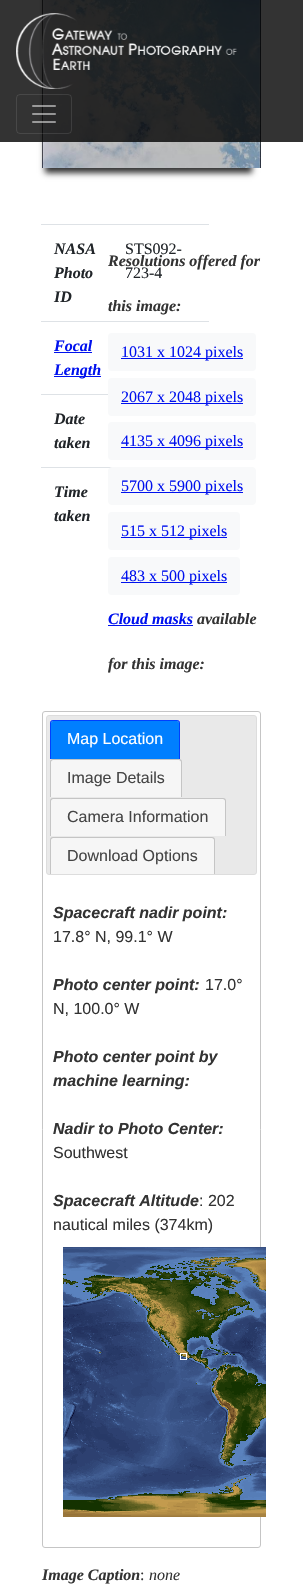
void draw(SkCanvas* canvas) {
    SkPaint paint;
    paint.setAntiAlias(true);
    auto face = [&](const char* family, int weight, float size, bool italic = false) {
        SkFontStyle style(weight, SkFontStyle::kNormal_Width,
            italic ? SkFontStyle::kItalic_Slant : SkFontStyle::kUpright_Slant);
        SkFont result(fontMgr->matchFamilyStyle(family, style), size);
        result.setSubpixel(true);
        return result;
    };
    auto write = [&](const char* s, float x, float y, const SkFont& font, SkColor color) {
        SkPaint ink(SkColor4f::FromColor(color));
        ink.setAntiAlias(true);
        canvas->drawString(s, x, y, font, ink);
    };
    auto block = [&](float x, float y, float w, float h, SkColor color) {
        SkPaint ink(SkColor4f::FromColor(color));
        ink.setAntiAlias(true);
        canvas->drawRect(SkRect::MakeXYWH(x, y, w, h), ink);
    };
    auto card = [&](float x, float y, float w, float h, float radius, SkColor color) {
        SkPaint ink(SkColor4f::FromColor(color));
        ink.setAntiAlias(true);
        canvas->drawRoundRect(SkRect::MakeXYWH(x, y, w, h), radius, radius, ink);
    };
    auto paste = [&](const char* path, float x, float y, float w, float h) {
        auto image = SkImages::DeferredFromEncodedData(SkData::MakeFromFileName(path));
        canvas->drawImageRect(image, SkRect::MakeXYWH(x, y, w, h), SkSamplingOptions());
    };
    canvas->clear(SK_ColorWHITE);
    paint.setColor(SkColorSetRGB(51, 51, 51));
    paint.setMaskFilter(SkMaskFilter::MakeBlur(kNormal_SkBlurStyle, 3));
    canvas->drawRect(SkRect::MakeXYWH(45, -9, 207, 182), paint);
    paint.setMaskFilter(nullptr);
    paste("pic3.png", 42, 0, 219, 168);
    block(0, 0, 303, 142, SkColorSetARGB(204, 0, 0, 0));
    paste("pic1.png", 16, 13, 221, 76);
    paint.setStyle(SkPaint::kStroke_Style);
    paint.setStrokeWidth(1);
    paint.setColor(SkColorSetARGB(26, 255, 255, 255));
    canvas->drawRoundRect(SkRect::MakeXYWH(16.5f, 94.5f, 55, 39), 3.5f, 3.5f, paint);
    paste("pic2.png", 32, 105, 24, 18);
    auto kFont1 = face("Liberation Serif", 700, 16, true);
    write("NASA", 54, 254, kFont1, SkColorSetRGB(33, 37, 41));
    write("Photo", 54, 278, kFont1, SkColorSetRGB(33, 37, 41));
    write("ID", 54, 302, kFont1, SkColorSetRGB(33, 37, 41));
    block(41, 224, 168, 1, SkColorSetRGB(222, 226, 230));
    auto kFont2 = face("Liberation Serif", 400, 16);
    write("STS092-", 125, 254, kFont2, SkColorSetRGB(33, 37, 41));
    write("723-4", 125, 278, kFont2, SkColorSetRGB(33, 37, 41));
    block(41, 321, 168, 1, SkColorSetRGB(222, 226, 230));
    write("Focal", 54, 351, kFont1, SkColorSetRGB(0, 17, 238));
    block(54, 352, 38, 1, SkColorSetRGB(0, 17, 238));
    block(54, 376, 47, 1, SkColorSetRGB(0, 17, 238));
    write("Length", 54, 375, kFont1, SkColorSetRGB(0, 17, 238));
    block(41, 394, 72, 1, SkColorSetRGB(222, 226, 230));
    write("Date", 54, 424, kFont1, SkColorSetRGB(33, 37, 41));
    write("taken", 54, 448, kFont1, SkColorSetRGB(33, 37, 41));
    block(41, 467, 72, 1, SkColorSetRGB(222, 226, 230));
    write("Time", 54, 497, kFont1, SkColorSetRGB(33, 37, 41));
    write("taken", 54, 521, kFont1, SkColorSetRGB(33, 37, 41));
    write("Resolutions offered for", 108, 266, kFont1, SkColorSetRGB(51, 51, 51));
    write("this image:", 108, 311, kFont1, SkColorSetRGB(51, 51, 51));
    card(108, 333, 148, 38, 4, SkColorSetRGB(248, 249, 250));
    block(121, 358, 122, 1, SkColorSetRGB(0, 17, 238));
    write("1031 x 1024 pixels", 121, 357, kFont2, SkColorSetRGB(0, 17, 238));
    card(108, 378, 148, 38, 4, SkColorSetRGB(248, 249, 250));
    block(121, 403, 122, 1, SkColorSetRGB(0, 17, 238));
    write("2067 x 2048 pixels", 121, 402, kFont2, SkColorSetRGB(0, 17, 238));
    card(108, 422, 148, 38, 4, SkColorSetRGB(248, 249, 250));
    block(121, 447, 122, 1, SkColorSetRGB(0, 17, 238));
    write("4135 x 4096 pixels", 121, 446, kFont2, SkColorSetRGB(0, 17, 238));
    paint.setStyle(SkPaint::kFill_Style);
    paint.setColor(SkColorSetRGB(248, 249, 250));
    canvas->drawRoundRect(SkRect::MakeXYWH(108.5f, 467.5f, 147, 37), 3.5f, 3.5f, paint);
    paint.setStyle(SkPaint::kStroke_Style);
    canvas->drawRoundRect(SkRect::MakeXYWH(108.5f, 467.5f, 147, 37), 3.5f, 3.5f, paint);
    block(121, 492, 122, 1, SkColorSetRGB(0, 17, 238));
    write("5700 x 5900 pixels", 121, 491, kFont2, SkColorSetRGB(0, 17, 238));
    card(108, 512, 132, 38, 4, SkColorSetRGB(248, 249, 250));
    block(121, 537, 106, 1, SkColorSetRGB(0, 17, 238));
    write("515 x 512 pixels", 121, 536, kFont2, SkColorSetRGB(0, 17, 238));
    card(108, 557, 132, 38, 4, SkColorSetRGB(248, 249, 250));
    block(121, 582, 106, 1, SkColorSetRGB(0, 17, 238));
    write("483 x 500 pixels", 121, 581, kFont2, SkColorSetRGB(0, 17, 238));
    write("Cloud masks", 108, 624, kFont1, SkColorSetRGB(0, 17, 238));
    block(108, 625, 85, 1, SkColorSetRGB(0, 17, 238));
    write("available", 197, 624, kFont1, SkColorSetRGB(51, 51, 51));
    write("for this image:", 108, 669, kFont1, SkColorSetRGB(51, 51, 51));
    paint.setColor(SkColorSetRGB(197, 197, 197));
    canvas->drawRoundRect(SkRect::MakeXYWH(42.5f, 711.5f, 218, 836), 2.5f, 2.5f, paint);
    paint.setStyle(SkPaint::kFill_Style);
    paint.setColor(SkColorSetRGB(233, 233, 233));
    canvas->drawRoundRect(SkRect::MakeXYWH(46.5f, 715.5f, 210, 159), 2.5f, 2.5f, paint);
    paint.setStyle(SkPaint::kStroke_Style);
    paint.setColor(SkColorSetRGB(221, 221, 221));
    canvas->drawRoundRect(SkRect::MakeXYWH(46.5f, 715.5f, 210, 159), 2.5f, 2.5f, paint);
    paint.setStyle(SkPaint::kFill_Style);
    paint.setColor(SkColorSetRGB(0, 127, 255));
    canvas->drawPath(SkPathBuilder().moveTo(53, 721).lineTo(177, 721).cubicTo(178, 721, 179, 722, 179, 723).lineTo(179, 759).lineTo(51, 759).lineTo(51, 723).cubicTo(51, 722, 52, 721, 53, 721).close().detach(), paint);
    paint.setColor(SkColorSetRGB(0, 62, 255));
    canvas->drawPath(SkPathBuilder(SkPathFillType::kEvenOdd).moveTo(53, 720).lineTo(177, 720).cubicTo(179, 720, 180, 721, 180, 723).lineTo(180, 759).lineTo(50, 759).lineTo(50, 723).cubicTo(50, 721, 51, 720, 53, 720).close().moveTo(53, 721).lineTo(177, 721).cubicTo(178, 721, 179, 722, 179, 723).lineTo(179, 759).lineTo(51, 759).lineTo(51, 723).cubicTo(51, 722, 52, 721, 53, 721).close().detach(), paint);
    auto kFont3 = face("Liberation Sans", 400, 16);
    write("Map Location", 67, 744, kFont3, SK_ColorWHITE);
    paint.setColor(SkColorSetRGB(246, 246, 246));
    canvas->drawPath(SkPathBuilder().moveTo(53, 760).lineTo(179, 760).cubicTo(180, 760, 181, 761, 181, 762).lineTo(181, 797).lineTo(51, 797).lineTo(51, 762).cubicTo(51, 761, 52, 760, 53, 760).close().detach(), paint);
    paint.setColor(SkColorSetRGB(197, 197, 197));
    canvas->drawPath(SkPathBuilder(SkPathFillType::kEvenOdd).moveTo(53, 759).lineTo(179, 759).cubicTo(181, 759, 182, 760, 182, 762).lineTo(182, 797).lineTo(50, 797).lineTo(50, 762).cubicTo(50, 760, 51, 759, 53, 759).close().moveTo(53, 760).lineTo(179, 760).cubicTo(180, 760, 181, 761, 181, 762).lineTo(181, 797).lineTo(51, 797).lineTo(51, 762).cubicTo(51, 761, 52, 760, 53, 760).close().detach(), paint);
    write("Image Details", 67, 783, kFont3, SkColorSetRGB(69, 69, 69));
    paint.setColor(SkColorSetRGB(246, 246, 246));
    canvas->drawPath(SkPathBuilder().moveTo(53, 799).lineTo(223, 799).cubicTo(224, 799, 225, 800, 225, 801).lineTo(225, 836).lineTo(51, 836).lineTo(51, 801).cubicTo(51, 800, 52, 799, 53, 799).close().detach(), paint);
    paint.setColor(SkColorSetRGB(197, 197, 197));
    canvas->drawPath(SkPathBuilder(SkPathFillType::kEvenOdd).moveTo(53, 798).lineTo(223, 798).cubicTo(225, 798, 226, 799, 226, 801).lineTo(226, 836).lineTo(50, 836).lineTo(50, 801).cubicTo(50, 799, 51, 798, 53, 798).close().moveTo(53, 799).lineTo(223, 799).cubicTo(224, 799, 225, 800, 225, 801).lineTo(225, 836).lineTo(51, 836).lineTo(51, 801).cubicTo(51, 800, 52, 799, 53, 799).close().detach(), paint);
    write("Camera Information", 67, 822, kFont3, SkColorSetRGB(69, 69, 69));
    paint.setColor(SkColorSetRGB(246, 246, 246));
    canvas->drawPath(SkPathBuilder().moveTo(53, 838).lineTo(212, 838).cubicTo(213, 838, 214, 839, 214, 840).lineTo(214, 874).lineTo(51, 874).lineTo(51, 840).cubicTo(51, 839, 52, 838, 53, 838).close().detach(), paint);
    paint.setColor(SkColorSetRGB(197, 197, 197));
    canvas->drawPath(SkPathBuilder(SkPathFillType::kEvenOdd).moveTo(53, 837).lineTo(212, 837).cubicTo(214, 837, 215, 838, 215, 840).lineTo(215, 874).lineTo(50, 874).lineTo(50, 840).cubicTo(50, 838, 51, 837, 53, 837).close().moveTo(53, 838).lineTo(212, 838).cubicTo(213, 838, 214, 839, 214, 840).lineTo(214, 874).lineTo(51, 874).lineTo(51, 840).cubicTo(51, 839, 52, 838, 53, 838).close().detach(), paint);
    write("Download Options", 67, 861, kFont3, SkColorSetRGB(69, 69, 69));
    auto kFont4 = face("Liberation Sans", 700, 16, true);
    write("Spacecraft nadir point:", 53, 918, kFont4, SkColorSetRGB(51, 51, 51));
    write("17.8° N, 99.1° W", 53, 942, kFont3, SkColorSetRGB(51, 51, 51));
    write("Photo center point:", 53, 990, kFont4, SkColorSetRGB(51, 51, 51));
    write("17.0°", 205, 990, kFont3, SkColorSetRGB(51, 51, 51));
    write("N, 100.0° W", 53, 1014, kFont3, SkColorSetRGB(51, 51, 51));
    write("Photo center point by", 53, 1062, kFont4, SkColorSetRGB(51, 51, 51));
    write("machine learning:", 53, 1086, kFont4, SkColorSetRGB(51, 51, 51));
    write("Nadir to Photo Center:", 53, 1134, kFont4, SkColorSetRGB(51, 51, 51));
    write("Southwest", 53, 1158, kFont3, SkColorSetRGB(51, 51, 51));
    write("Spacecraft Altitude", 53, 1206, kFont4, SkColorSetRGB(51, 51, 51));
    write(": 202", 199, 1206, kFont3, SkColorSetRGB(51, 51, 51));
    write("nautical miles (374km)", 53, 1230, kFont3, SkColorSetRGB(51, 51, 51));
    paste("pic4.png", 63, 1247, 203, 270);
    write("Image Caption", 42, 1580, kFont1, SkColorSetRGB(51, 51, 51));
    write(":", 140, 1580, kFont2, SkColorSetRGB(51, 51, 51));
    auto kFont5 = face("Liberation Serif", 400, 16, true);
    write("none", 149, 1580, kFont5, SkColorSetRGB(51, 51, 51));
}
